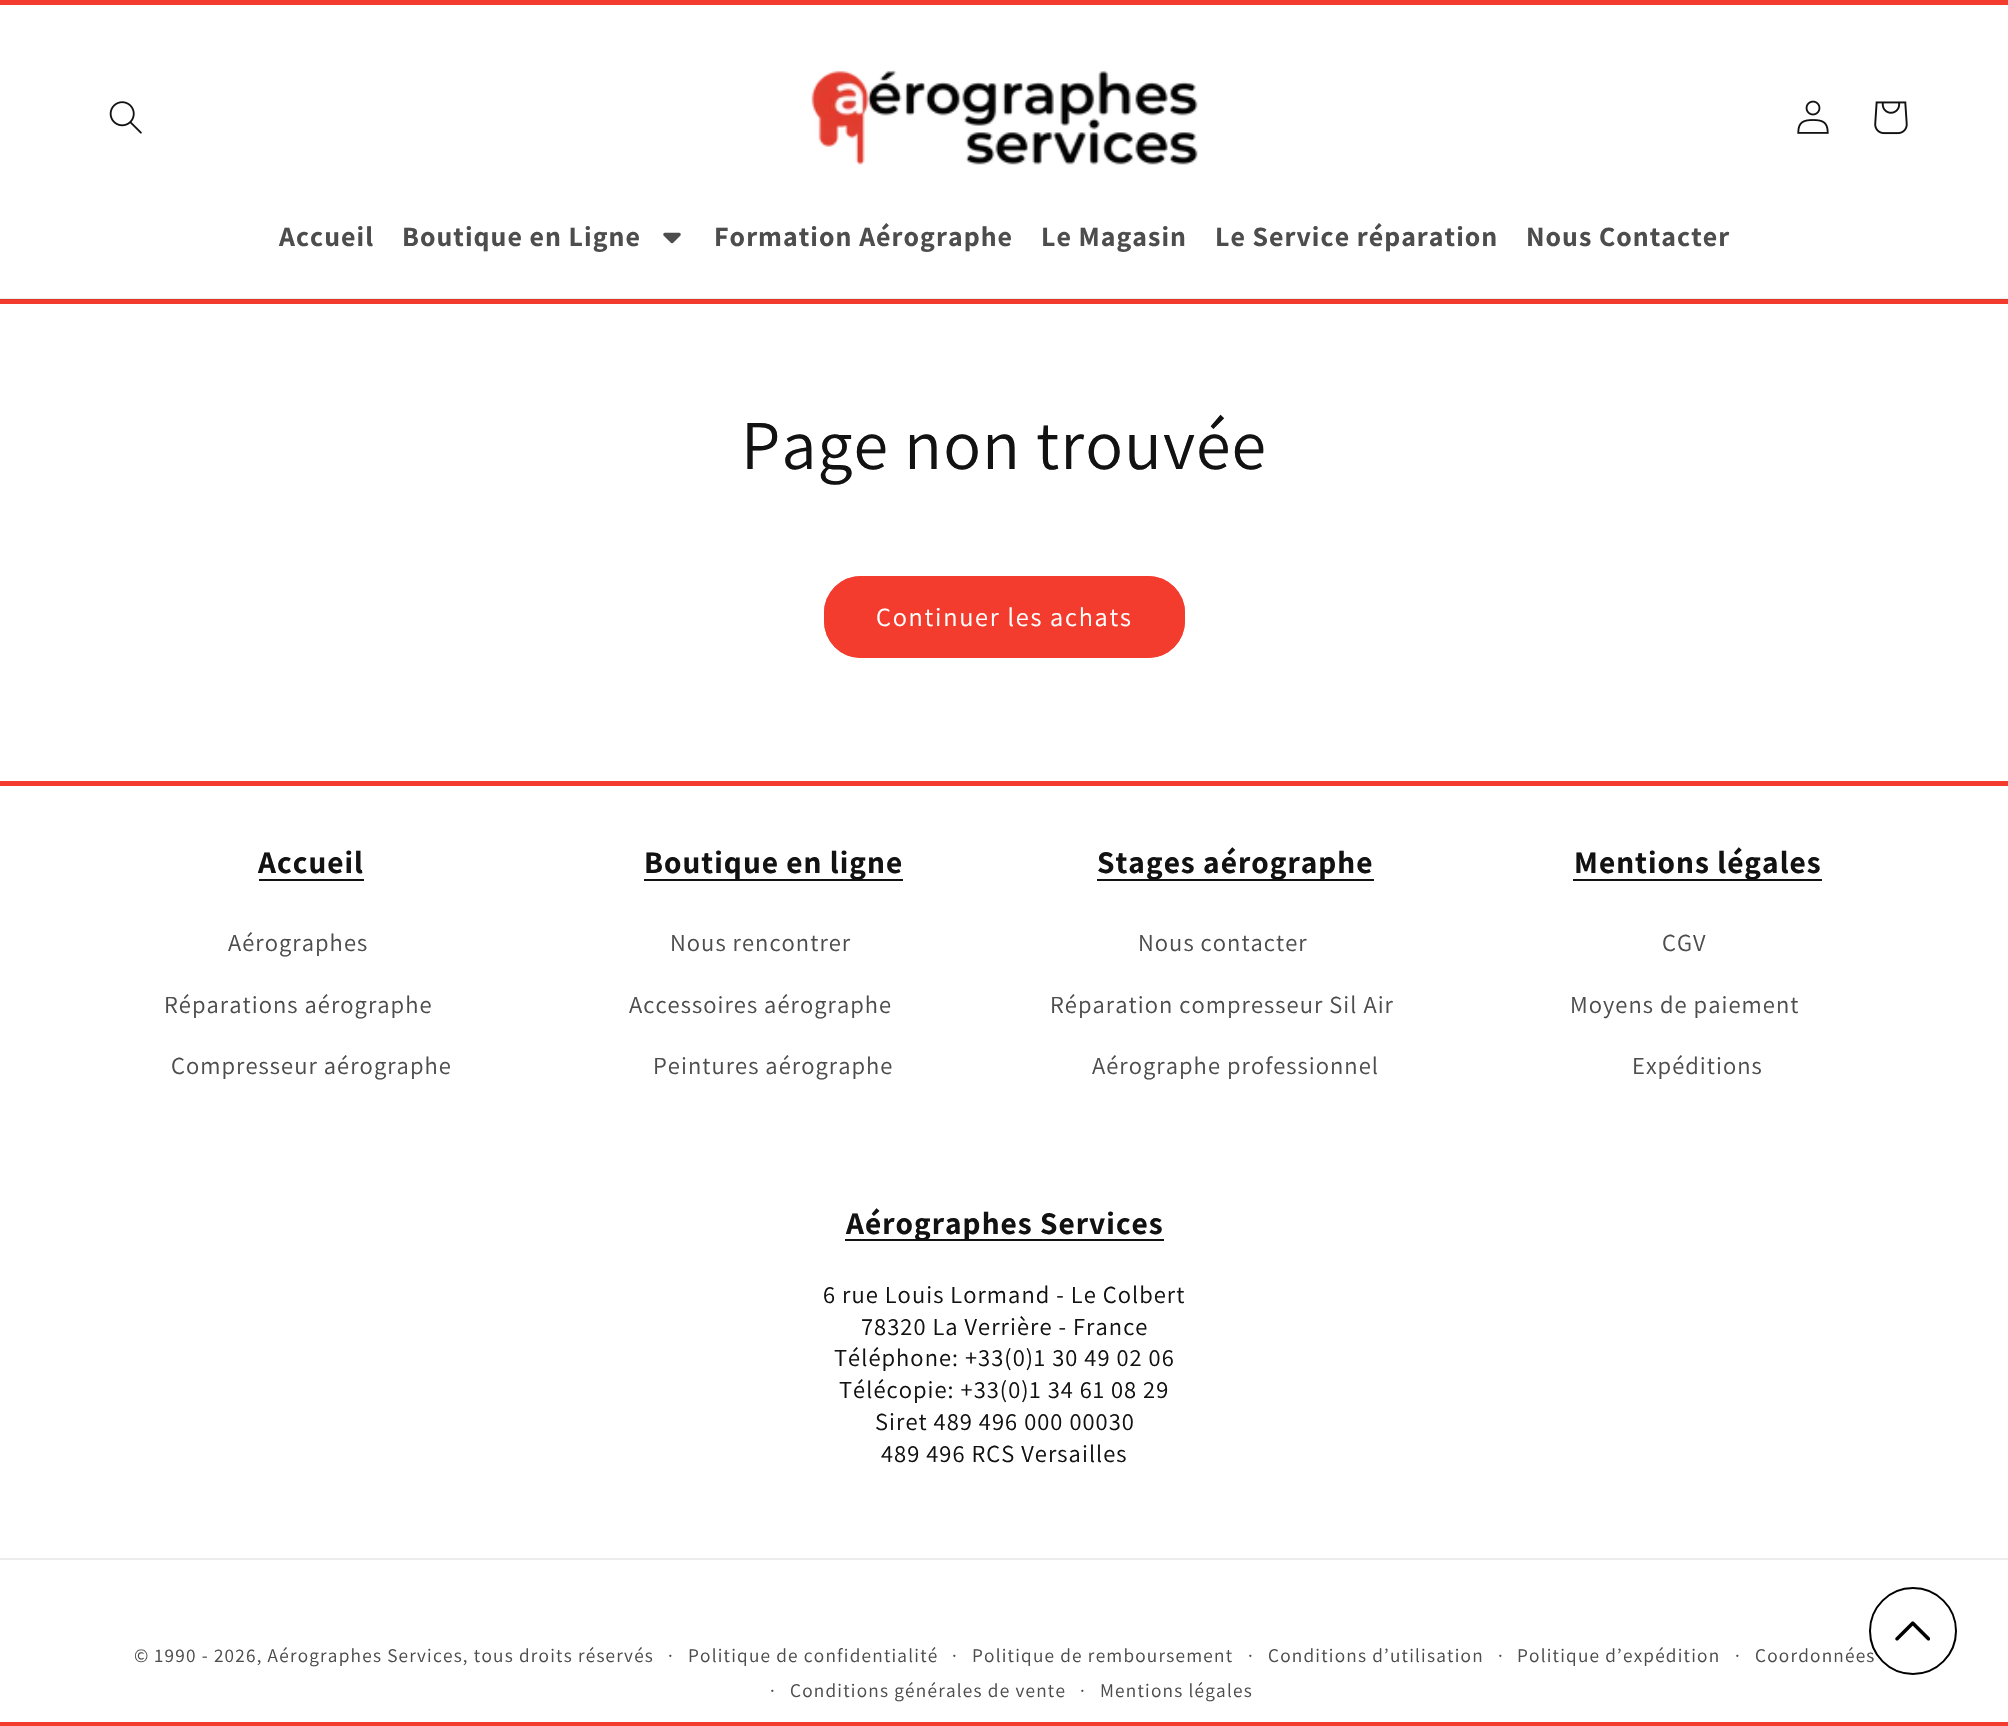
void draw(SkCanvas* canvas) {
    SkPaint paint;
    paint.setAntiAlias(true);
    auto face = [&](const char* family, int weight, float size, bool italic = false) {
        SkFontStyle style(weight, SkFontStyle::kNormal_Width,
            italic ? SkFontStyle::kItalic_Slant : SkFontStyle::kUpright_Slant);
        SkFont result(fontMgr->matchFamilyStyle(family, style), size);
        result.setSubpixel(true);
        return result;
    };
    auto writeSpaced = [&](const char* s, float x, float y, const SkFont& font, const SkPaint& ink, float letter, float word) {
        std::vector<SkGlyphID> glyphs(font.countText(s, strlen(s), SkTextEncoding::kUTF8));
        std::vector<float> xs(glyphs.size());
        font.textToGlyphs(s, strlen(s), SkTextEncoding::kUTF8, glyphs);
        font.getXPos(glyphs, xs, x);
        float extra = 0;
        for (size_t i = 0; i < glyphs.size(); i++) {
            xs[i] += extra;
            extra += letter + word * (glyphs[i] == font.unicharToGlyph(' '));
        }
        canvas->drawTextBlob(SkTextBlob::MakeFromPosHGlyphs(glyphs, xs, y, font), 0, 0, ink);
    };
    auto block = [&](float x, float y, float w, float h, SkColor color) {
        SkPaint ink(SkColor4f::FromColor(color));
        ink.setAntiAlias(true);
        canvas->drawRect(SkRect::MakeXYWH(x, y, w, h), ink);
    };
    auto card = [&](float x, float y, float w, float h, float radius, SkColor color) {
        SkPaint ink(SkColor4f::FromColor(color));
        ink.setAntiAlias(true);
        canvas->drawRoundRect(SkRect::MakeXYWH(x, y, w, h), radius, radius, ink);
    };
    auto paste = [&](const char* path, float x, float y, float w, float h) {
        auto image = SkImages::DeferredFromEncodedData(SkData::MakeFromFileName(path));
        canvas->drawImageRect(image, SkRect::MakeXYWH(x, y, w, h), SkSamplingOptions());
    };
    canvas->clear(SK_ColorWHITE);
    block(0, 0, 2008, 5, SkColorSetRGB(243, 60, 46));
    block(0, 300, 2008, 4, SkColorSetRGB(243, 60, 46));
    block(0, 299, 2008, 1, SkColorSetRGB(225, 57, 44));
    block(0, 298, 2008, 1, SkColorSetRGB(236, 236, 236));
    paste("pic1.png", 109, 101, 33, 33);
    paste("pic2.png", 811, 70, 387, 95);
    paste("pic3.png", 1797, 100, 32, 34);
    paste("pic4.png", 1874, 101, 34, 34);
    auto kFont1 = face("Assistant", 700, 28);
    paint.setColor(SkColorSetRGB(77, 77, 77));
    writeSpaced("Accueil", 279, 246, kFont1, paint, 1.05f, 0);
    writeSpaced("Boutique en Ligne", 402, 246, kFont1, paint, 1.05f, 0);
    paste("pic5.png", 663, 232, 18, 12);
    writeSpaced("Formation Aérographe", 714, 246, kFont1, paint, 1.05f, 0);
    writeSpaced("Le Magasin", 1041, 246, kFont1, paint, 1.05f, 0);
    writeSpaced("Le Service réparation", 1215, 246, kFont1, paint, 1.05f, 0);
    writeSpaced("Nous Contacter", 1526, 246, kFont1, paint, 1.05f, 0);
    auto kFont2 = face("Assistant", 400, 70);
    paint.setColor(SkColorSetRGB(18, 18, 18));
    writeSpaced("Page non trouvée", 741, 469, kFont2, paint, 1.05f, 0);
    card(824, 576, 361, 82, 37, SkColorSetRGB(243, 60, 46));
    paint.setStyle(SkPaint::kStroke_Style);
    paint.setStrokeWidth(2);
    paint.setColor(SkColorSetRGB(243, 60, 46));
    canvas->drawRoundRect(SkRect::MakeXYWH(825, 577, 359, 80), 36, 36, paint);
    auto kFont3 = face("Assistant", 400, 26.25f);
    paint.setStyle(SkPaint::kFill_Style);
    paint.setColor(SK_ColorWHITE);
    writeSpaced("Continuer les achats", 876, 626, kFont3, paint, 1.75f, 0);
    block(0, 781, 2008, 5, SkColorSetRGB(243, 60, 46));
    block(0, 1722, 2008, 4, SkColorSetRGB(243, 60, 46));
    auto kFont4 = face("Assistant", 700, 31.5f);
    paint.setColor(SkColorSetRGB(18, 18, 18));
    writeSpaced("Accueil", 258, 873, kFont4, paint, 1.05f, 0);
    block(259, 879, 105, 2, SkColorSetRGB(18, 18, 18));
    auto kFont5 = face("Assistant", 400, 24.5f);
    paint.setColor(SkColorSetRGB(77, 77, 77));
    writeSpaced("Aérographes", 228, 951, kFont5, paint, 1.05f, 0);
    writeSpaced("Réparations aérographe", 164, 1013, kFont5, paint, 1.05f, 0);
    writeSpaced("Compresseur aérographe", 171, 1074, kFont5, paint, 1.05f, 0);
    block(644, 879, 259, 2, SkColorSetRGB(18, 18, 18));
    paint.setColor(SkColorSetRGB(18, 18, 18));
    writeSpaced("Boutique en ligne", 644, 873, kFont4, paint, 1.05f, 0);
    paint.setColor(SkColorSetRGB(77, 77, 77));
    writeSpaced("Nous rencontrer", 670, 951, kFont5, paint, 1.05f, 0);
    writeSpaced("Accessoires aérographe", 629, 1013, kFont5, paint, 1.05f, 0);
    writeSpaced("Peintures aérographe", 653, 1074, kFont5, paint, 1.05f, 0);
    block(1097, 879, 277, 2, SkColorSetRGB(18, 18, 18));
    paint.setColor(SkColorSetRGB(18, 18, 18));
    writeSpaced("Stages aérographe", 1097, 873, kFont4, paint, 1.05f, 0);
    paint.setColor(SkColorSetRGB(77, 77, 77));
    writeSpaced("Nous contacter", 1138, 951, kFont5, paint, 1.05f, 0);
    writeSpaced("Réparation compresseur Sil Air", 1050, 1013, kFont5, paint, 1.05f, 0);
    writeSpaced("Aérographe professionnel", 1092, 1074, kFont5, paint, 1.05f, 0);
    block(1573, 879, 249, 2, SkColorSetRGB(18, 18, 18));
    paint.setColor(SkColorSetRGB(18, 18, 18));
    writeSpaced("Mentions légales", 1574, 873, kFont4, paint, 1.05f, 0);
    paint.setColor(SkColorSetRGB(77, 77, 77));
    writeSpaced("CGV", 1662, 951, kFont5, paint, 1.05f, 0);
    writeSpaced("Moyens de paiement", 1570, 1013, kFont5, paint, 1.05f, 0);
    writeSpaced("Expéditions", 1632, 1074, kFont5, paint, 1.05f, 0);
    block(845, 1239, 319, 2, SkColorSetRGB(18, 18, 18));
    paint.setColor(SkColorSetRGB(18, 18, 18));
    writeSpaced("Aérographes Services", 846, 1234, kFont4, paint, 1.05f, 0);
    writeSpaced("6 rue Louis Lormand - Le Colbert", 823, 1303, kFont5, paint, 1.05f, 0);
    writeSpaced("78320 La Verrière - France", 861, 1335, kFont5, paint, 1.05f, 0);
    writeSpaced("Téléphone: +33(0)1 30 49 02 06", 834, 1366, kFont5, paint, 1.05f, 0);
    writeSpaced("Télécopie: +33(0)1 34 61 08 29", 839, 1398, kFont5, paint, 1.05f, 0);
    writeSpaced("Siret 489 496 000 00030", 875, 1430, kFont5, paint, 1.05f, 0);
    writeSpaced("489 496 RCS Versailles", 881, 1462, kFont5, paint, 1.05f, 0);
    block(0, 1558, 2008, 2, SkColorSetRGB(236, 236, 236));
    auto kFont6 = face("Assistant", 400, 19.25f);
    paint.setColor(SkColorSetRGB(77, 77, 77));
    writeSpaced("© 1990 - 2026, Aérographes Services, tous droits réservés", 134, 1662, kFont6, paint, 1.22f, 0);
    writeSpaced("·", 668, 1662, kFont6, paint, 1.22f, 0);
    writeSpaced("Politique de confidentialité", 688, 1662, kFont6, paint, 1.22f, 0);
    writeSpaced("·", 952, 1662, kFont6, paint, 1.22f, 0);
    writeSpaced("Politique de remboursement", 972, 1662, kFont6, paint, 1.22f, 0);
    writeSpaced("·", 1248, 1662, kFont6, paint, 1.22f, 0);
    writeSpaced("Conditions d’utilisation", 1268, 1662, kFont6, paint, 1.22f, 0);
    writeSpaced("·", 1498, 1662, kFont6, paint, 1.22f, 0);
    writeSpaced("Politique d’expédition", 1517, 1662, kFont6, paint, 1.22f, 0);
    writeSpaced("·", 1735, 1662, kFont6, paint, 1.22f, 0);
    writeSpaced("Coordonnées", 1755, 1662, kFont6, paint, 1.22f, 0);
    writeSpaced("·", 770, 1697, kFont6, paint, 1.22f, 0);
    writeSpaced("Conditions générales de vente", 790, 1697, kFont6, paint, 1.22f, 0);
    writeSpaced("·", 1080, 1697, kFont6, paint, 1.22f, 0);
    writeSpaced("Mentions légales", 1100, 1697, kFont6, paint, 1.22f, 0);
    paint.setStyle(SkPaint::kStroke_Style);
    paint.setColor(SK_ColorBLACK);
    canvas->drawCircle(1913, 1631, 43, paint);
    paste("pic6.png", 1895, 1621, 35, 20);
}
